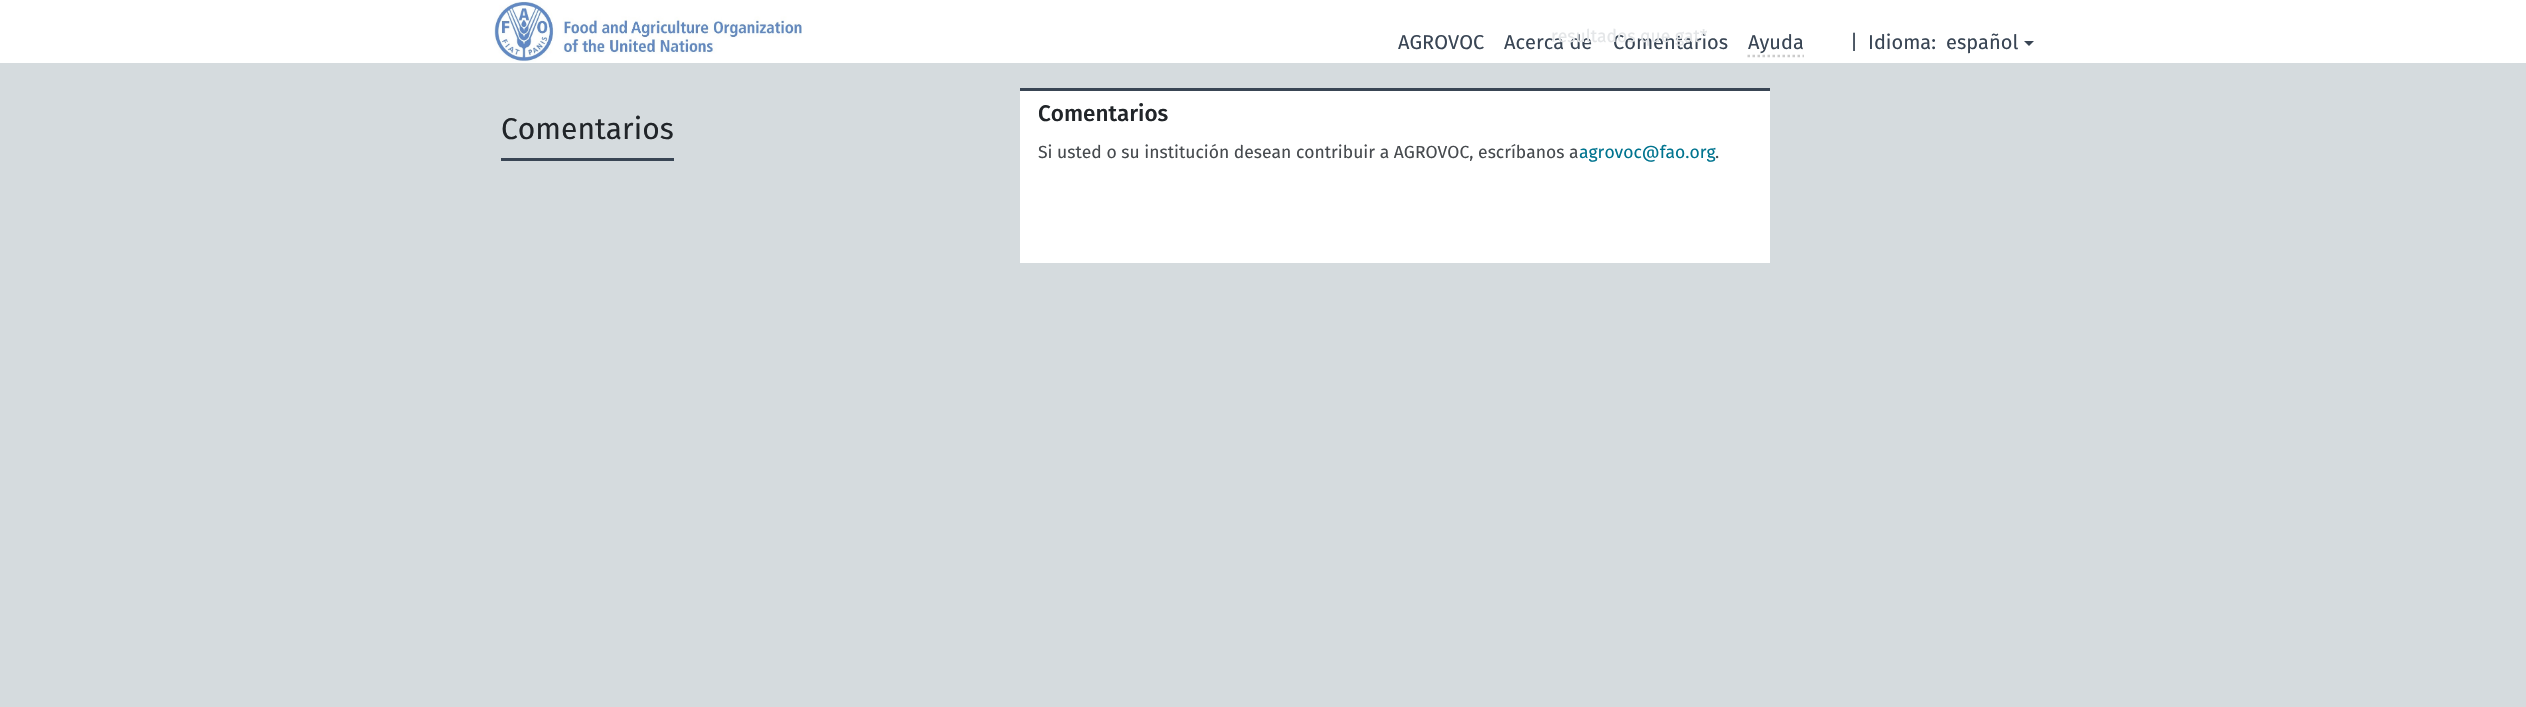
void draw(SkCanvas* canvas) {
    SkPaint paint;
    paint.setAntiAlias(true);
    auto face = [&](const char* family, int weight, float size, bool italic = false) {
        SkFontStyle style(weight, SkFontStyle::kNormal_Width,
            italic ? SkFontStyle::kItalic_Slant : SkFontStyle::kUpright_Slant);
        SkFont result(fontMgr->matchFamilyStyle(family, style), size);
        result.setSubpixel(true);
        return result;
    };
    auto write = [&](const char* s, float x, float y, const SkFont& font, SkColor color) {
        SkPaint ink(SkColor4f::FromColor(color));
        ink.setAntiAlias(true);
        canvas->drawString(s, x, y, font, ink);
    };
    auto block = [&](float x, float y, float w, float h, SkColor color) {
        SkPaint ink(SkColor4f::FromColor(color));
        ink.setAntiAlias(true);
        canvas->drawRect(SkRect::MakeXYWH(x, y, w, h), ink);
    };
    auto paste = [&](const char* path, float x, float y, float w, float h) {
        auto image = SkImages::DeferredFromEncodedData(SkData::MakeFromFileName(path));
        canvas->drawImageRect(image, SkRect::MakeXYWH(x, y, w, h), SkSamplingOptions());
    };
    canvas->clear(SkColorSetRGB(213, 219, 222));
    block(0, 0, 2526, 63, SK_ColorWHITE);
    paste("pic1.png", 494, 1, 308, 61);
    auto kFont1 = face("Fira Sans", 400, 20);
    write("Acerca de", 1504, 49, kFont1, SkColorSetRGB(57, 69, 84));
    write("Comentarios", 1613, 49, kFont1, SkColorSetRGB(57, 69, 84));
    auto kFont2 = face("Fira Sans", 400, 17.5f);
    write("resultados que gat*", 1551, 42, kFont2, SkColorSetRGB(228, 230, 232));
    write("Ayuda", 1748, 49, kFont1, SkColorSetRGB(57, 69, 84));
    paint.setStyle(SkPaint::kStroke_Style);
    paint.setStrokeWidth(2.5f);
    paint.setColor(SkColorSetRGB(204, 204, 204));
    paint.setPathEffect(SkDashPathEffect::Make({{2.5f, 2.5f}}, 0));
    canvas->drawPath(SkPathBuilder().moveTo(1747.5f, 56).lineTo(1804, 56).detach(), paint);
    paint.setPathEffect(nullptr);
    write("AGROVOC", 1398, 49, kFont1, SkColorSetRGB(57, 69, 84));
    write("|", 1850, 49, kFont1, SkColorSetRGB(57, 69, 84));
    write("Idioma:", 1868, 49, kFont1, SkColorSetRGB(57, 69, 84));
    write("español", 1946, 49, kFont1, SkColorSetRGB(57, 69, 84));
    paint.setStyle(SkPaint::kFill_Style);
    paint.setColor(SkColorSetRGB(57, 69, 84));
    canvas->drawPath(SkPathBuilder().moveTo(2024, 41).lineTo(2034, 41).lineTo(2029, 46).close().detach(), paint);
    block(501, 158, 173, 3, SkColorSetRGB(57, 69, 84));
    auto kFont3 = face("Fira Sans", 400, 30);
    write("Comentarios", 501, 139, kFont3, SkColorSetRGB(33, 37, 41));
    block(1020, 91, 750, 172, SK_ColorWHITE);
    block(1020, 88, 750, 3, SkColorSetRGB(57, 69, 84));
    auto kFont4 = face("Fira Sans", 500, 22.5f);
    write("Comentarios", 1038, 121, kFont4, SkColorSetRGB(33, 37, 41));
    write("Si usted o su institución desean contribuir a AGROVOC, escríbanos a", 1038, 158, kFont2, SkColorSetRGB(71, 75, 79));
    write("agrovoc@fao.org", 1579, 158, kFont2, SkColorSetRGB(0, 116, 143));
    write(".", 1715, 158, kFont2, SkColorSetRGB(71, 75, 79));
}
